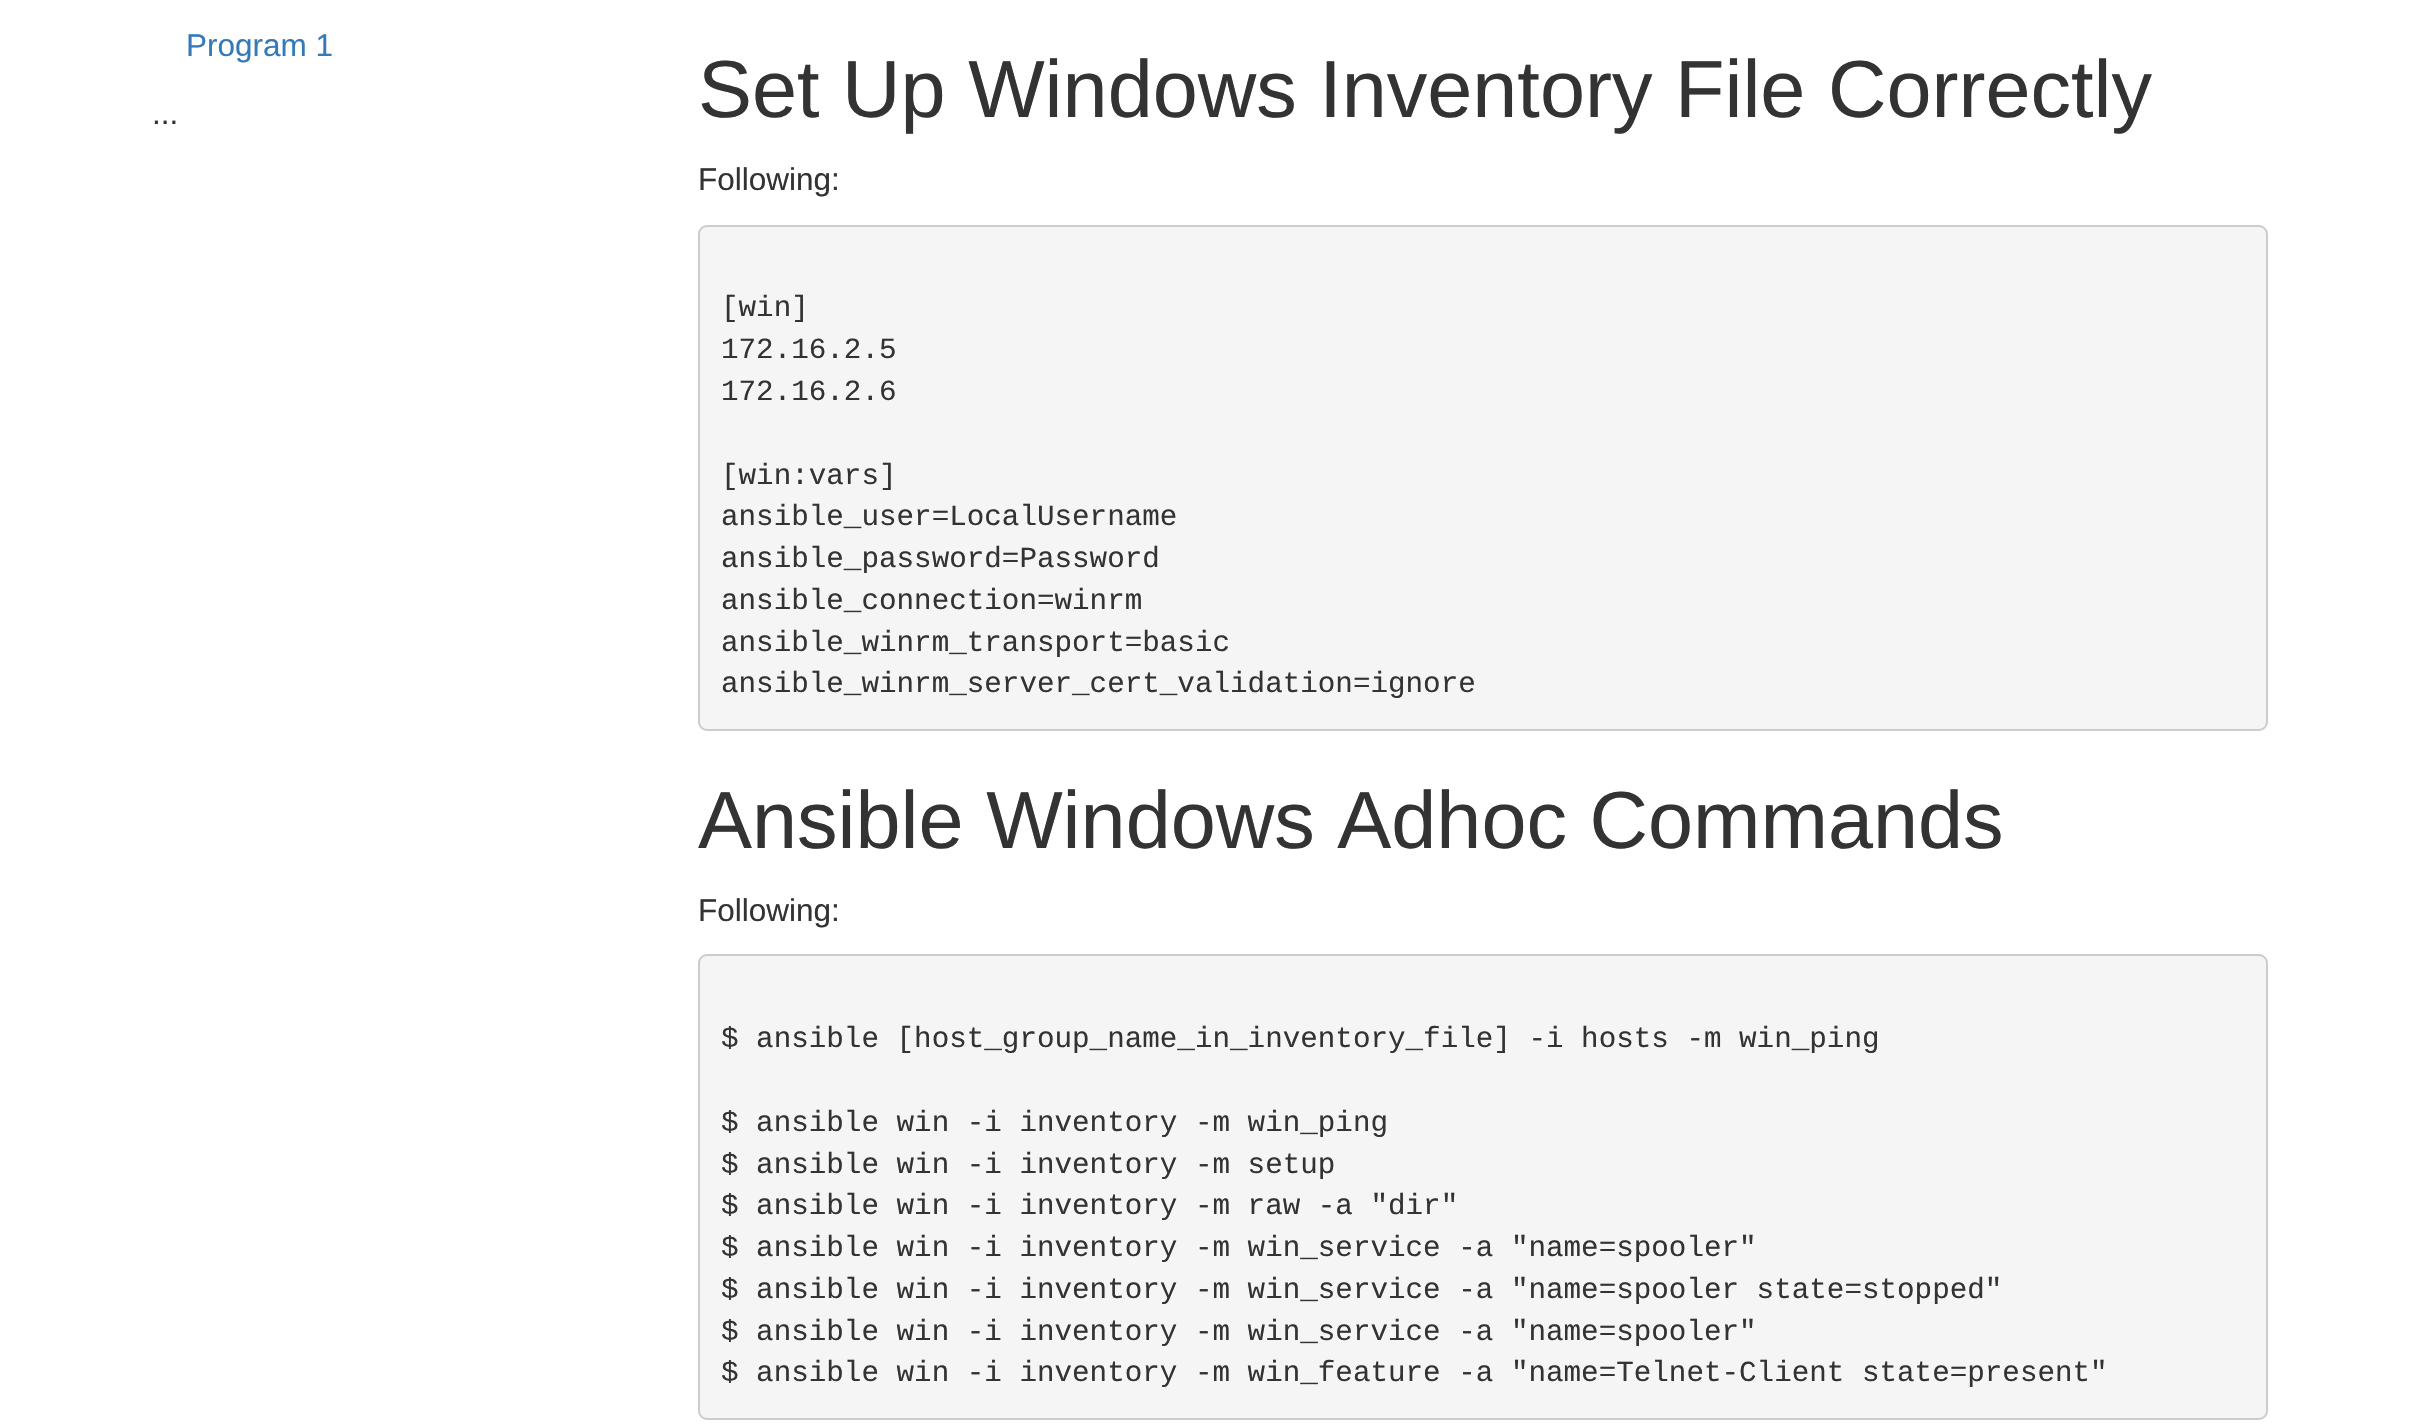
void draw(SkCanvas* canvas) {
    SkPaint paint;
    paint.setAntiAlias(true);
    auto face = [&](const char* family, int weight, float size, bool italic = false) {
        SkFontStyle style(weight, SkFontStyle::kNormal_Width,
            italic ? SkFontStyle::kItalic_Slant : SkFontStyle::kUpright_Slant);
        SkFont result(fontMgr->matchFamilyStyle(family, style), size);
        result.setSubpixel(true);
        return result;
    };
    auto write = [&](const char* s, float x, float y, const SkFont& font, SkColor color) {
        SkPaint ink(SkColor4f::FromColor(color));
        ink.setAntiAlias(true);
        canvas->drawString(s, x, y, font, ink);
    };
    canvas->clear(SK_ColorWHITE);
    auto kFont1 = face("Liberation Sans", 400, 31.5f);
    write("Program 1", 186, 56, kFont1, SkColorSetRGB(51, 122, 183));
    write("...", 152, 124, kFont1, SkColorSetRGB(51, 51, 51));
    auto kFont2 = face("Liberation Sans", 400, 81);
    write("Set Up Windows Inventory File Correctly", 698, 117, kFont2, SkColorSetRGB(51, 51, 51));
    write("Following:", 698, 190, kFont1, SkColorSetRGB(51, 51, 51));
    paint.setColor(SkColorSetRGB(245, 245, 245));
    canvas->drawRoundRect(SkRect::MakeXYWH(699, 226, 1568, 504), 8, 8, paint);
    paint.setStyle(SkPaint::kStroke_Style);
    paint.setStrokeWidth(2);
    paint.setColor(SkColorSetRGB(204, 204, 204));
    canvas->drawRoundRect(SkRect::MakeXYWH(699, 226, 1568, 504), 8, 8, paint);
    auto kFont3 = face("Liberation Mono", 400, 29.25f);
    write("[win]", 721, 316, kFont3, SkColorSetRGB(51, 51, 51));
    write("172.16.2.5", 721, 358, kFont3, SkColorSetRGB(51, 51, 51));
    write("172.16.2.6", 721, 400, kFont3, SkColorSetRGB(51, 51, 51));
    write("[win:vars]", 721, 484, kFont3, SkColorSetRGB(51, 51, 51));
    write("ansible_user=LocalUsername", 721, 525, kFont3, SkColorSetRGB(51, 51, 51));
    write("ansible_password=Password", 721, 567, kFont3, SkColorSetRGB(51, 51, 51));
    write("ansible_connection=winrm", 721, 609, kFont3, SkColorSetRGB(51, 51, 51));
    write("ansible_winrm_transport=basic", 721, 651, kFont3, SkColorSetRGB(51, 51, 51));
    write("ansible_winrm_server_cert_validation=ignore", 721, 692, kFont3, SkColorSetRGB(51, 51, 51));
    write("Ansible Windows Adhoc Commands", 698, 848, kFont2, SkColorSetRGB(51, 51, 51));
    write("Following:", 698, 921, kFont1, SkColorSetRGB(51, 51, 51));
    paint.setStyle(SkPaint::kFill_Style);
    paint.setColor(SkColorSetRGB(245, 245, 245));
    canvas->drawRoundRect(SkRect::MakeXYWH(699, 955, 1568, 464), 8, 8, paint);
    paint.setStyle(SkPaint::kStroke_Style);
    paint.setColor(SkColorSetRGB(204, 204, 204));
    canvas->drawRoundRect(SkRect::MakeXYWH(699, 955, 1568, 464), 8, 8, paint);
    write("$ ansible [host_group_name_in_inventory_file] -i hosts -m win_ping", 721, 1047, kFont3, SkColorSetRGB(51, 51, 51));
    write("$ ansible win -i inventory -m win_ping", 721, 1131, kFont3, SkColorSetRGB(51, 51, 51));
    write("$ ansible win -i inventory -m setup", 721, 1173, kFont3, SkColorSetRGB(51, 51, 51));
    write("$ ansible win -i inventory -m raw -a \"dir\"", 721, 1214, kFont3, SkColorSetRGB(51, 51, 51));
    write("$ ansible win -i inventory -m win_service -a \"name=spooler\"", 721, 1256, kFont3, SkColorSetRGB(51, 51, 51));
    write("$ ansible win -i inventory -m win_service -a \"name=spooler state=stopped\"", 721, 1298, kFont3, SkColorSetRGB(51, 51, 51));
    write("$ ansible win -i inventory -m win_service -a \"name=spooler\"", 721, 1340, kFont3, SkColorSetRGB(51, 51, 51));
    write("$ ansible win -i inventory -m win_feature -a \"name=Telnet-Client state=present\"", 721, 1381, kFont3, SkColorSetRGB(51, 51, 51));
}
